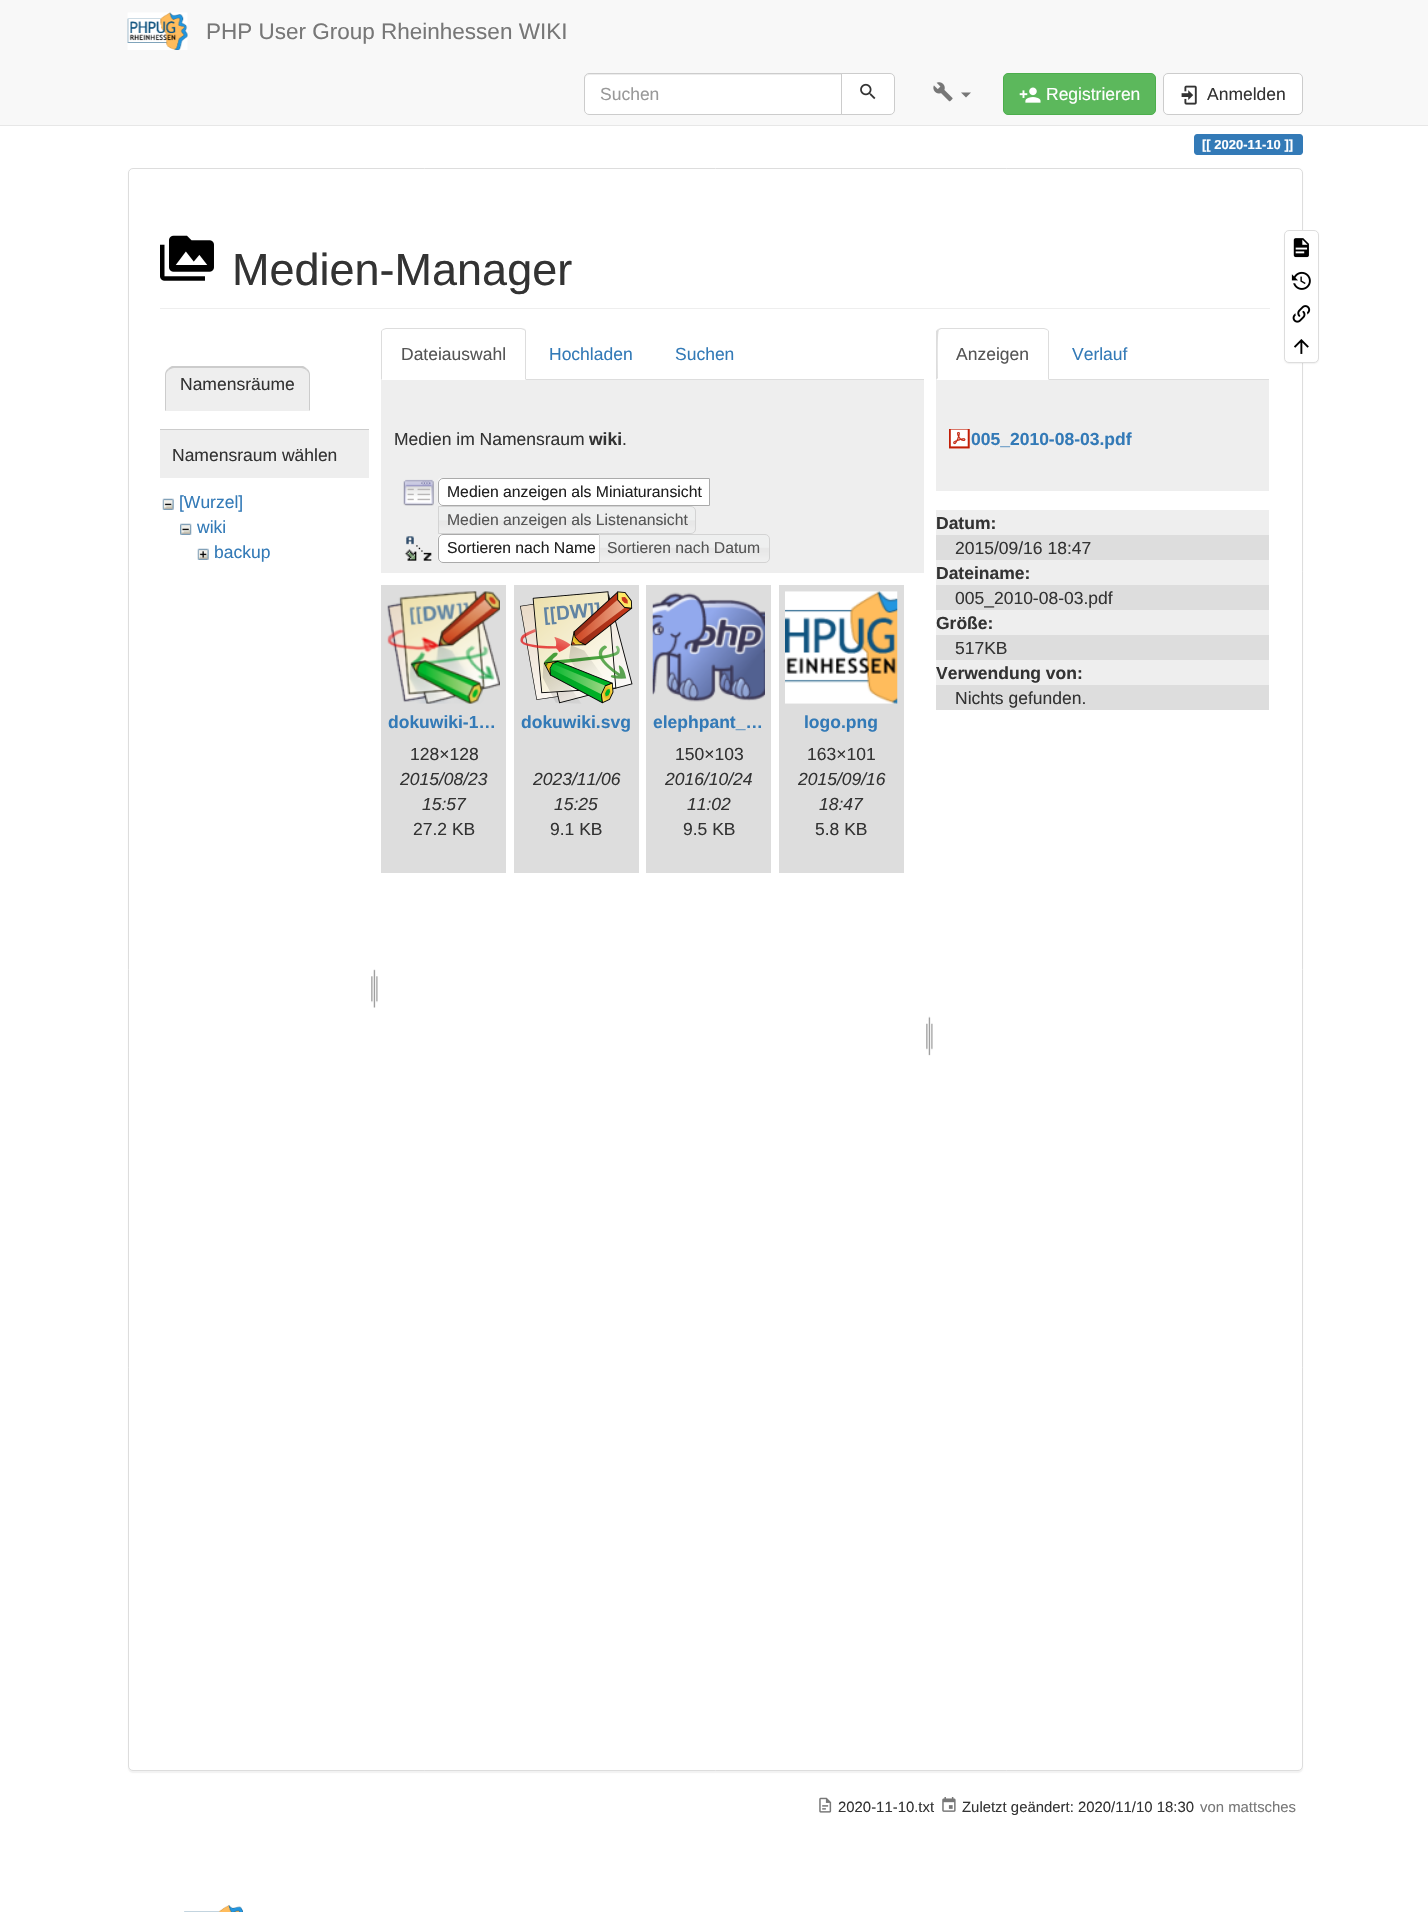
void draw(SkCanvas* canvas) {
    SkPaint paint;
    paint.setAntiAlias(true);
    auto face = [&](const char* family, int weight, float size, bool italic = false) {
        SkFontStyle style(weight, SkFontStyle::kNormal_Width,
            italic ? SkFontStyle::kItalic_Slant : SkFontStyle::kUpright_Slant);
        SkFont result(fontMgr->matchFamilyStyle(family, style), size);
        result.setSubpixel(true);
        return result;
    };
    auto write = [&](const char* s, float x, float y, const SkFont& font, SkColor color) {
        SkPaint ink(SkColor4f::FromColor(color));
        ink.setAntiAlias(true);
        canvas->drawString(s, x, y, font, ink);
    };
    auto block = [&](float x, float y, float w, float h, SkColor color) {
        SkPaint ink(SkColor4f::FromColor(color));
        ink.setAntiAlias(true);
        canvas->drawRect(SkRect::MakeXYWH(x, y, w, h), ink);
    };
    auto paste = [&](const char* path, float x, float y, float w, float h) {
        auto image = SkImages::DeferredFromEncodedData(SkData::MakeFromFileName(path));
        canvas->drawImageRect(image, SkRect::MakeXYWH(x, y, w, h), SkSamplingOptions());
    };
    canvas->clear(SK_ColorWHITE);
    block(0, 0, 1428, 125, SkColorSetRGB(248, 248, 248));
    block(0, 125, 1428, 1, SkColorSetRGB(231, 231, 231));
    paste("pic1.png", 127, 12, 61, 38);
    auto kFont1 = face("Liberation Sans", 400, 22.5f);
    write("PHP User Group Rheinhessen WIKI", 206, 39, kFont1, SkColorSetRGB(119, 119, 119));
    paint.setColor(SK_ColorWHITE);
    canvas->drawPath(SkPathBuilder().moveTo(589, 73).lineTo(843, 73).lineTo(843, 115).lineTo(589, 115).cubicTo(586, 115, 584, 113, 584, 110).lineTo(584, 78).cubicTo(584, 75, 586, 73, 589, 73).close().detach(), paint);
    paint.setColor(SkColorSetRGB(236, 236, 236));
    canvas->drawPath(SkPathBuilder().moveTo(589, 75).lineTo(841, 75).lineTo(841, 74).lineTo(589, 74).cubicTo(587, 74, 585, 76, 585, 78).lineTo(585, 79).cubicTo(585, 77, 587, 75, 589, 75).close().detach(), paint);
    paint.setStyle(SkPaint::kStroke_Style);
    paint.setStrokeWidth(1);
    paint.setColor(SkColorSetRGB(204, 204, 204));
    canvas->drawPath(SkPathBuilder().moveTo(589, 73.5f).lineTo(842.5f, 73.5f).lineTo(842.5f, 114.5f).lineTo(589, 114.5f).cubicTo(586.5f, 114.5f, 584.5f, 112.5f, 584.5f, 110).lineTo(584.5f, 78).cubicTo(584.5f, 75.5f, 586.5f, 73.5f, 589, 73.5f).close().detach(), paint);
    auto kFont2 = face("Liberation Sans", 400, 17.5f);
    write("Suchen", 600, 100, kFont2, SkColorSetRGB(153, 153, 153));
    paint.setStyle(SkPaint::kFill_Style);
    paint.setColor(SK_ColorWHITE);
    canvas->drawPath(SkPathBuilder().moveTo(841.5f, 73.5f).lineTo(890, 73.5f).cubicTo(892.5f, 73.5f, 894.5f, 75.5f, 894.5f, 78).lineTo(894.5f, 110).cubicTo(894.5f, 112.5f, 892.5f, 114.5f, 890, 114.5f).lineTo(841.5f, 114.5f).close().detach(), paint);
    paint.setStyle(SkPaint::kStroke_Style);
    paint.setColor(SkColorSetRGB(204, 204, 204));
    canvas->drawPath(SkPathBuilder().moveTo(841.5f, 73.5f).lineTo(890, 73.5f).cubicTo(892.5f, 73.5f, 894.5f, 75.5f, 894.5f, 78).lineTo(894.5f, 110).cubicTo(894.5f, 112.5f, 892.5f, 114.5f, 890, 114.5f).lineTo(841.5f, 114.5f).close().detach(), paint);
    paste("pic2.png", 860, 83, 16, 17);
    paste("pic3.png", 933, 82, 20, 20);
    paint.setStyle(SkPaint::kFill_Style);
    paint.setColor(SkColorSetRGB(119, 119, 119));
    canvas->drawPath(SkPathBuilder().moveTo(961, 92.5f).lineTo(971, 92.5f).lineTo(966, 97.5f).close().detach(), paint);
    paint.setColor(SkColorSetRGB(92, 184, 92));
    canvas->drawRoundRect(SkRect::MakeXYWH(1003.5f, 73.5f, 152, 41), 4.5f, 4.5f, paint);
    paint.setStyle(SkPaint::kStroke_Style);
    paint.setColor(SkColorSetRGB(76, 174, 76));
    canvas->drawRoundRect(SkRect::MakeXYWH(1003.5f, 73.5f, 152, 41), 4.5f, 4.5f, paint);
    paste("pic4.png", 1019, 87, 22, 16);
    write("Registrieren", 1046, 100, kFont2, SK_ColorWHITE);
    paint.setStyle(SkPaint::kFill_Style);
    paint.setColor(SK_ColorWHITE);
    canvas->drawRoundRect(SkRect::MakeXYWH(1163.5f, 73.5f, 139, 41), 4.5f, 4.5f, paint);
    paint.setStyle(SkPaint::kStroke_Style);
    paint.setColor(SkColorSetRGB(204, 204, 204));
    canvas->drawRoundRect(SkRect::MakeXYWH(1163.5f, 73.5f, 139, 41), 4.5f, 4.5f, paint);
    paste("pic5.png", 1181, 85, 16, 20);
    write("Anmelden", 1207, 100, kFont2, SkColorSetRGB(51, 51, 51));
    paint.setStyle(SkPaint::kFill_Style);
    paint.setColor(SkColorSetRGB(51, 122, 183));
    canvas->drawPath(SkPathBuilder().moveTo(1197, 134).lineTo(1215, 134).lineTo(1215, 155).lineTo(1197, 155).cubicTo(1195.5f, 155, 1194, 153.5f, 1194, 152).lineTo(1194, 137).cubicTo(1194, 135.5f, 1195.5f, 134, 1197, 134).close().detach(), paint);
    block(1215, 134, 66, 21, SkColorSetRGB(51, 122, 183));
    canvas->drawPath(SkPathBuilder().moveTo(1281, 134).lineTo(1300, 134).cubicTo(1301.5f, 134, 1303, 135.5f, 1303, 137).lineTo(1303, 152).cubicTo(1303, 153.5f, 1301.5f, 155, 1300, 155).lineTo(1281, 155).close().detach(), paint);
    auto kFont3 = face("Liberation Sans", 700, 13);
    write("[[ 2020-11-10 ]]", 1202, 149, kFont3, SK_ColorWHITE);
    paint.setColor(SkColorSetARGB(13, 0, 0, 0));
    paint.setMaskFilter(SkMaskFilter::MakeBlur(kNormal_SkBlurStyle, 0.5f));
    canvas->drawRoundRect(SkRect::MakeXYWH(128, 169, 1175, 1604), 5, 5, paint);
    paint.setMaskFilter(nullptr);
    paint.setColor(SK_ColorWHITE);
    canvas->drawRoundRect(SkRect::MakeXYWH(128.5f, 168.5f, 1174, 1602), 4.5f, 4.5f, paint);
    paint.setStyle(SkPaint::kStroke_Style);
    paint.setColor(SkColorSetRGB(221, 221, 221));
    canvas->drawRoundRect(SkRect::MakeXYWH(128.5f, 168.5f, 1174, 1602), 4.5f, 4.5f, paint);
    block(160, 308, 1110, 1, SkColorSetRGB(238, 238, 238));
    paste("pic6.png", 160, 235, 54, 46);
    auto kFont4 = face("Liberation Sans", 400, 45);
    write("Medien-Manager", 232, 285, kFont4, SkColorSetRGB(51, 51, 51));
    paint.setStyle(SkPaint::kFill_Style);
    paint.setColor(SkColorSetRGB(238, 238, 238));
    canvas->drawPath(SkPathBuilder().moveTo(174, 366).lineTo(301, 366).cubicTo(306, 366, 310, 370, 310, 375).lineTo(310, 411).lineTo(165, 411).lineTo(165, 375).cubicTo(165, 370, 169, 366, 174, 366).close().detach(), paint);
    paint.setColor(SkColorSetRGB(204, 204, 204));
    canvas->drawPath(SkPathBuilder().moveTo(174, 368).cubicTo(172, 368, 170, 369, 169, 370).lineTo(168, 369).cubicTo(169, 368, 170, 367, 172, 366).lineTo(303, 366).cubicTo(305, 367, 306, 368, 307, 369).lineTo(306, 370).cubicTo(305, 369, 303, 368, 301, 368).close().detach(), paint);
    canvas->drawPath(SkPathBuilder().moveTo(310, 411).lineTo(310, 375).cubicTo(310, 373, 309, 370, 307, 369).lineTo(306, 370).cubicTo(308, 371, 309, 373, 309, 375).lineTo(309, 410).close().detach(), paint);
    paint.setColor(SkColorSetRGB(238, 238, 238));
    canvas->drawPath(SkPathBuilder().moveTo(310, 411).lineTo(165, 411).lineTo(166, 410).lineTo(309, 410).close().detach(), paint);
    paint.setColor(SkColorSetRGB(204, 204, 204));
    canvas->drawPath(SkPathBuilder().moveTo(165, 375).lineTo(165, 411).lineTo(166, 410).lineTo(166, 375).cubicTo(166, 373, 167, 371, 169, 370).lineTo(168, 369).cubicTo(166, 370, 165, 373, 165, 375).close().detach(), paint);
    write("Namensräume", 180, 390, kFont2, SkColorSetRGB(51, 51, 51));
    block(160, 430, 209, 48, SkColorSetRGB(238, 238, 238));
    block(160, 429, 209, 1, SkColorSetRGB(204, 204, 204));
    write("Namensraum wählen", 172, 461, kFont2, SkColorSetRGB(51, 51, 51));
    paste("pic7.png", 162, 498, 12, 12);
    write("[Wurzel]", 179, 508, kFont2, SkColorSetRGB(51, 122, 183));
    paste("pic8.png", 180, 523, 12, 12);
    write("wiki", 197, 533, kFont2, SkColorSetRGB(51, 122, 183));
    paste("pic9.png", 197, 548, 12, 12);
    write("backup", 214, 558, kFont2, SkColorSetRGB(51, 122, 183));
    paste("pic10.png", 371, 969, 7, 39);
    block(526, 379, 398, 1, SkColorSetRGB(221, 221, 221));
    paint.setColor(SkColorSetRGB(221, 221, 221));
    canvas->drawPath(SkPathBuilder().moveTo(386, 328).lineTo(383, 329).lineTo(383, 330).lineTo(386, 329).lineTo(521, 329).lineTo(524, 330).lineTo(525, 329).lineTo(521, 328).close().detach(), paint);
    canvas->drawPath(SkPathBuilder().moveTo(526, 380).lineTo(526, 331).lineTo(525, 329).lineTo(524, 330).lineTo(525, 331).lineTo(525, 379).close().detach(), paint);
    canvas->drawPath(SkPathBuilder().moveTo(381, 380).lineTo(382, 379).lineTo(382, 331).lineTo(383, 330).lineTo(383, 329).lineTo(381, 331).close().detach(), paint);
    write("Dateiauswahl", 401, 360, kFont2, SkColorSetRGB(85, 85, 85));
    write("Hochladen", 549, 360, kFont2, SkColorSetRGB(51, 122, 183));
    write("Suchen", 675, 360, kFont2, SkColorSetRGB(51, 122, 183));
    block(381, 380, 543, 193, SkColorSetRGB(238, 238, 238));
    write("Medien im Namensraum", 394, 445, kFont2, SkColorSetRGB(51, 51, 51));
    auto kFont5 = face("Liberation Sans", 700, 17.5f);
    write("wiki", 589, 445, kFont5, SkColorSetRGB(51, 51, 51));
    write(".", 622, 445, kFont2, SkColorSetRGB(51, 51, 51));
    paste("pic11.png", 403, 479, 31, 27);
    paint.setColor(SK_ColorWHITE);
    canvas->drawPath(SkPathBuilder().moveTo(443, 478).lineTo(710, 478).lineTo(710, 506).lineTo(443, 506).cubicTo(440, 506, 438, 504, 438, 501).lineTo(438, 483).cubicTo(438, 480, 440, 478, 443, 478).close().detach(), paint);
    paste("pic12.png", 437, 478, 5, 28);
    paint.setStyle(SkPaint::kStroke_Style);
    paint.setColor(SkColorSetRGB(170, 170, 170));
    canvas->drawPath(SkPathBuilder().moveTo(443, 478.5f).lineTo(709.5f, 478.5f).lineTo(709.5f, 505.5f).lineTo(443, 505.5f).cubicTo(440.5f, 505.5f, 438.5f, 503.5f, 438.5f, 501).lineTo(438.5f, 483).cubicTo(438.5f, 480.5f, 440.5f, 478.5f, 443, 478.5f).close().detach(), paint);
    auto kFont6 = face("Liberation Sans", 400, 15.75f);
    write("Medien anzeigen als Miniaturansicht", 447, 497, kFont6, SkColorSetRGB(33, 33, 33));
    paste("pic13.png", 439, 506, 257, 28);
    paint.setColor(SkColorSetRGB(211, 211, 211));
    canvas->drawPath(SkPathBuilder().moveTo(438.5f, 506.5f).lineTo(691, 506.5f).cubicTo(693.5f, 506.5f, 695.5f, 508.5f, 695.5f, 511).lineTo(695.5f, 529).cubicTo(695.5f, 531.5f, 693.5f, 533.5f, 691, 533.5f).lineTo(438.5f, 533.5f).close().detach(), paint);
    write("Medien anzeigen als Listenansicht", 447, 525, kFont6, SkColorSetRGB(85, 85, 85));
    paste("pic14.png", 404, 536, 28, 25);
    paint.setStyle(SkPaint::kFill_Style);
    paint.setColor(SK_ColorWHITE);
    canvas->drawPath(SkPathBuilder().moveTo(443, 534).lineTo(605, 534).lineTo(605, 563).lineTo(443, 563).cubicTo(440, 563, 438, 561, 438, 558).lineTo(438, 539).cubicTo(438, 536, 440, 534, 443, 534).close().detach(), paint);
    paste("pic15.png", 437, 534, 5, 27);
    paint.setStyle(SkPaint::kStroke_Style);
    paint.setColor(SkColorSetRGB(170, 170, 170));
    canvas->drawPath(SkPathBuilder().moveTo(443, 534.5f).lineTo(604.5f, 534.5f).lineTo(604.5f, 562.5f).lineTo(443, 562.5f).cubicTo(440.5f, 562.5f, 438.5f, 560.5f, 438.5f, 558).lineTo(438.5f, 539).cubicTo(438.5f, 536.5f, 440.5f, 534.5f, 443, 534.5f).close().detach(), paint);
    write("Sortieren nach Name", 447, 553, kFont6, SkColorSetRGB(33, 33, 33));
    paste("pic16.png", 598, 534, 172, 28);
    paint.setColor(SkColorSetRGB(211, 211, 211));
    canvas->drawPath(SkPathBuilder().moveTo(599.5f, 534.5f).lineTo(765, 534.5f).cubicTo(767.5f, 534.5f, 769.5f, 536.5f, 769.5f, 539).lineTo(769.5f, 558).cubicTo(769.5f, 560.5f, 767.5f, 562.5f, 765, 562.5f).lineTo(599.5f, 562.5f).close().detach(), paint);
    write("Sortieren nach Datum", 607, 553, kFont6, SkColorSetRGB(85, 85, 85));
    block(381, 585, 125, 288, SkColorSetRGB(221, 221, 221));
    paste("pic17.png", 387, 591, 113, 113);
    write("dokuwiki-1…", 388, 728, kFont5, SkColorSetRGB(51, 122, 183));
    write("128×128", 410, 760, kFont2, SkColorSetRGB(51, 51, 51));
    auto kFont7 = face("Liberation Sans", 400, 17.5f, true);
    write("2015/08/23", 400, 785, kFont7, SkColorSetRGB(51, 51, 51));
    write("15:57", 422, 810, kFont7, SkColorSetRGB(51, 51, 51));
    write("27.2 KB", 413, 835, kFont2, SkColorSetRGB(51, 51, 51));
    block(514, 585, 125, 288, SkColorSetRGB(221, 221, 221));
    paste("pic18.png", 520, 591, 113, 113);
    write("dokuwiki.svg", 521, 728, kFont5, SkColorSetRGB(51, 122, 183));
    write("2023/11/06", 533, 785, kFont7, SkColorSetRGB(51, 51, 51));
    write("15:25", 554, 810, kFont7, SkColorSetRGB(51, 51, 51));
    write("9.1 KB", 550, 835, kFont2, SkColorSetRGB(51, 51, 51));
    block(646, 585, 125, 288, SkColorSetRGB(221, 221, 221));
    paste("pic19.png", 652, 592, 113, 110);
    write("elephpant_…", 653, 728, kFont5, SkColorSetRGB(51, 122, 183));
    write("150×103", 675, 760, kFont2, SkColorSetRGB(51, 51, 51));
    write("2016/10/24", 665, 785, kFont7, SkColorSetRGB(51, 51, 51));
    write("11:02", 687, 810, kFont7, SkColorSetRGB(51, 51, 51));
    write("9.5 KB", 683, 835, kFont2, SkColorSetRGB(51, 51, 51));
    block(779, 585, 125, 288, SkColorSetRGB(221, 221, 221));
    paste("pic20.png", 785, 591, 113, 113);
    write("logo.png", 804, 728, kFont5, SkColorSetRGB(51, 122, 183));
    write("163×101", 807, 760, kFont2, SkColorSetRGB(51, 51, 51));
    write("2015/09/16", 798, 785, kFont7, SkColorSetRGB(51, 51, 51));
    write("18:47", 819, 810, kFont7, SkColorSetRGB(51, 51, 51));
    write("5.8 KB", 815, 835, kFont2, SkColorSetRGB(51, 51, 51));
    paste("pic21.png", 926, 1016, 7, 40);
    block(1049, 379, 220, 1, SkColorSetRGB(221, 221, 221));
    paint.setStyle(SkPaint::kFill_Style);
    paint.setColor(SkColorSetRGB(221, 221, 221));
    canvas->drawPath(SkPathBuilder().moveTo(941, 328).lineTo(938, 329).lineTo(939, 330).lineTo(941, 329).lineTo(1044, 329).lineTo(1047, 330).lineTo(1047, 329).lineTo(1044, 328).close().detach(), paint);
    canvas->drawPath(SkPathBuilder().moveTo(1047, 329).lineTo(1049, 331).lineTo(1049, 380).lineTo(1048, 379).lineTo(1048, 331).lineTo(1047, 330).close().detach(), paint);
    canvas->drawPath(SkPathBuilder().moveTo(936, 380).lineTo(938, 378).cubicTo(938, 372, 937, 332, 939, 330).lineTo(938, 329).lineTo(936, 331).close().detach(), paint);
    write("Anzeigen", 956, 360, kFont2, SkColorSetRGB(85, 85, 85));
    write("Verlauf", 1072, 360, kFont2, SkColorSetRGB(51, 122, 183));
    block(936, 380, 333, 111, SkColorSetRGB(238, 238, 238));
    paste("pic22.png", 949, 429, 21, 20);
    write("005_2010-08-03.pdf", 971, 445, kFont5, SkColorSetRGB(51, 122, 183));
    block(936, 510, 333, 25, SkColorSetRGB(238, 238, 238));
    write("Datum:", 936, 529, kFont5, SkColorSetRGB(51, 51, 51));
    block(936, 535, 333, 25, SkColorSetRGB(221, 221, 221));
    write("2015/09/16 18:47", 955, 554, kFont2, SkColorSetRGB(51, 51, 51));
    block(936, 560, 333, 25, SkColorSetRGB(238, 238, 238));
    write("Dateiname:", 936, 579, kFont5, SkColorSetRGB(51, 51, 51));
    block(936, 585, 333, 25, SkColorSetRGB(221, 221, 221));
    write("005_2010-08-03.pdf", 955, 604, kFont2, SkColorSetRGB(51, 51, 51));
    block(936, 610, 333, 25, SkColorSetRGB(238, 238, 238));
    write("Größe:", 936, 629, kFont5, SkColorSetRGB(51, 51, 51));
    block(936, 635, 333, 25, SkColorSetRGB(221, 221, 221));
    write("517KB", 955, 654, kFont2, SkColorSetRGB(51, 51, 51));
    block(936, 660, 333, 25, SkColorSetRGB(238, 238, 238));
    write("Verwendung von:", 936, 679, kFont5, SkColorSetRGB(51, 51, 51));
    block(936, 685, 333, 25, SkColorSetRGB(221, 221, 221));
    write("Nichts gefunden.", 955, 704, kFont2, SkColorSetRGB(51, 51, 51));
    paint.setColor(SkColorSetARGB(13, 0, 0, 0));
    paint.setMaskFilter(SkMaskFilter::MakeBlur(kNormal_SkBlurStyle, 0.5f));
    canvas->drawRoundRect(SkRect::MakeXYWH(1284, 231, 35, 133), 5, 5, paint);
    paint.setMaskFilter(nullptr);
    paint.setColor(SK_ColorWHITE);
    canvas->drawRoundRect(SkRect::MakeXYWH(1284.5f, 230.5f, 34, 132), 4.5f, 4.5f, paint);
    paint.setStyle(SkPaint::kStroke_Style);
    paint.setColor(SkColorSetRGB(221, 221, 221));
    canvas->drawRoundRect(SkRect::MakeXYWH(1284.5f, 230.5f, 34, 132), 4.5f, 4.5f, paint);
    paste("pic23.png", 1293, 238, 16, 20);
    paste("pic24.png", 1291, 271, 20, 19);
    paste("pic25.png", 1292, 305, 19, 18);
    paste("pic26.png", 1294, 339, 15, 15);
    paste("pic27.png", 819, 1797, 13, 16);
    auto kFont8 = face("Liberation Sans", 400, 14.9f);
    write("2020-11-10.txt", 838, 1812, kFont8, SkColorSetRGB(51, 51, 51));
    paste("pic28.png", 942, 1797, 14, 15);
    write("Zuletzt geändert: 2020/11/10 18:30", 962, 1812, kFont8, SkColorSetRGB(51, 51, 51));
    write("von mattsches", 1200, 1812, kFont8, SkColorSetRGB(119, 119, 119));
    paste("pic29.png", 184, 1905, 59, 7);
}
